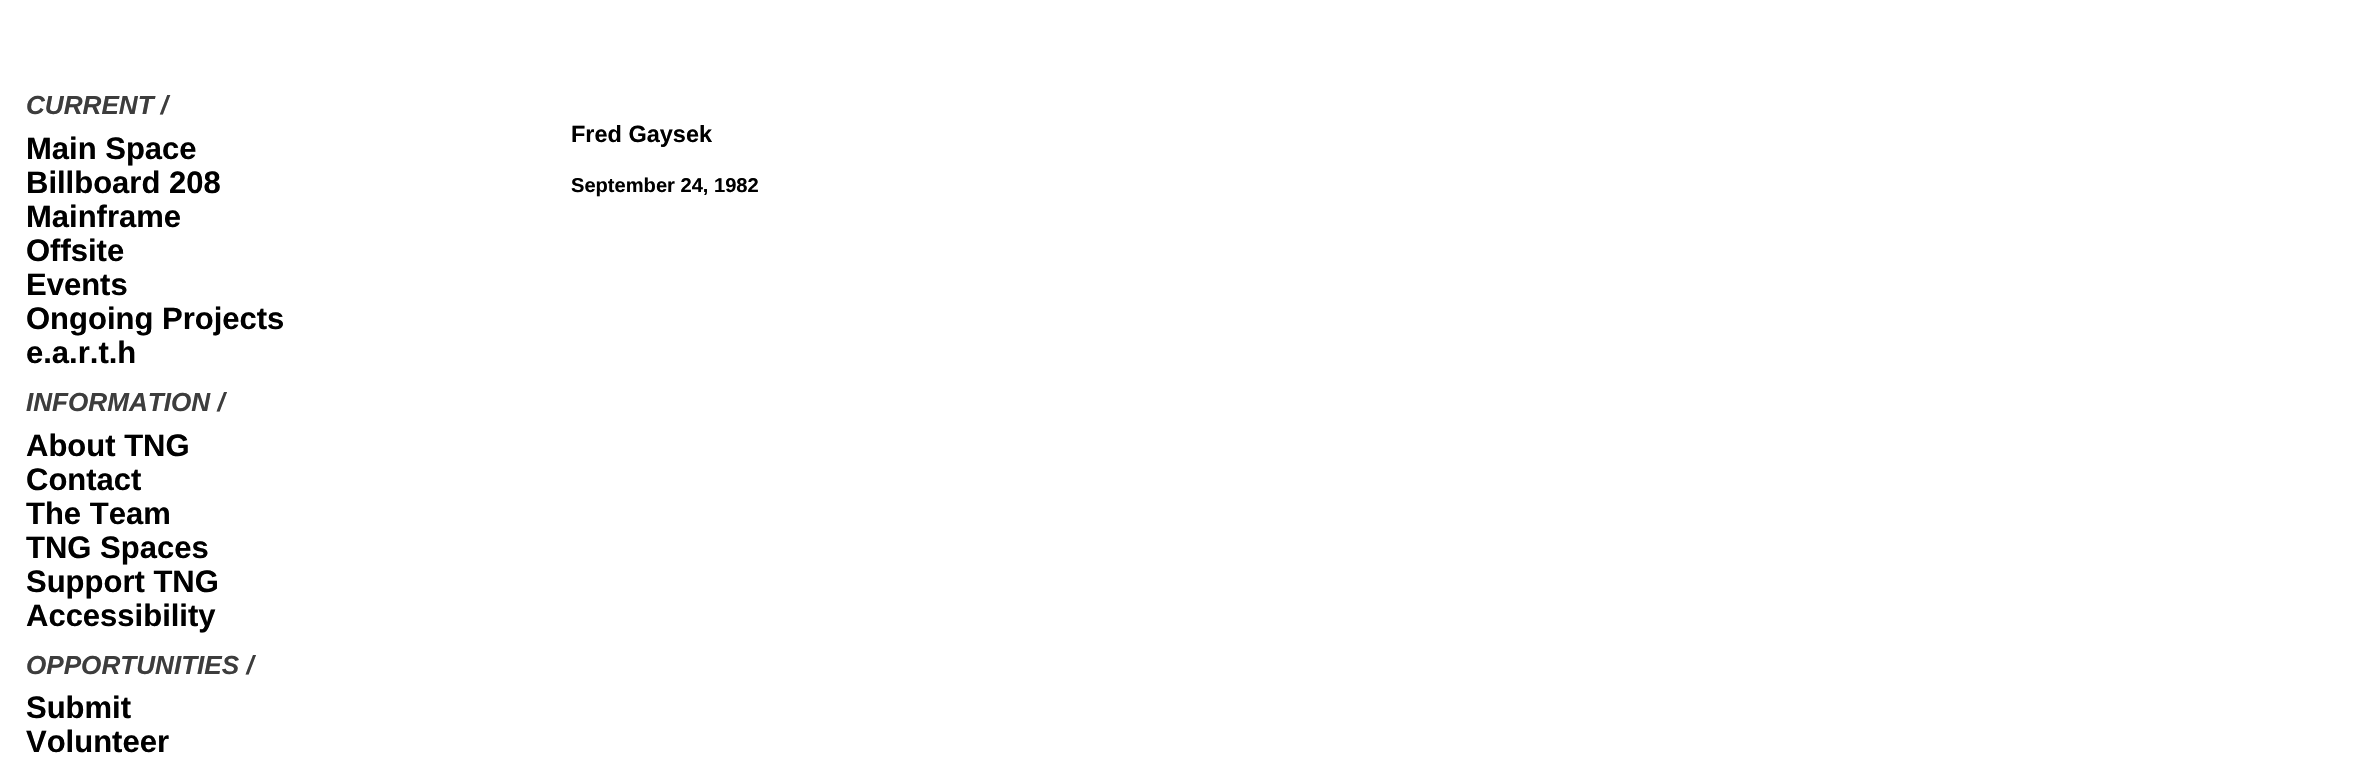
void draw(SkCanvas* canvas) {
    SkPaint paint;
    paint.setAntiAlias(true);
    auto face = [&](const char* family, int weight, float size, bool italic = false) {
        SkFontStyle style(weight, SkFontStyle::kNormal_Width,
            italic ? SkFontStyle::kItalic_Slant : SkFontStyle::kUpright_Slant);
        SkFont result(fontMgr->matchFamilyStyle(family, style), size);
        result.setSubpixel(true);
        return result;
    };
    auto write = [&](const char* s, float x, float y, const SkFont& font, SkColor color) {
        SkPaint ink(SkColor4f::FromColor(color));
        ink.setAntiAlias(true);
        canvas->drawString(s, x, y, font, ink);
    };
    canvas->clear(SK_ColorWHITE);
    auto kFont1 = face("Liberation Sans", 700, 26.1f, true);
    write("CURRENT /", 26, 114, kFont1, SkColorSetRGB(61, 61, 61));
    auto kFont2 = face("Liberation Sans", 700, 31);
    write("Main Space", 26, 159, kFont2, SK_ColorBLACK);
    write("Billboard 208", 26, 193, kFont2, SK_ColorBLACK);
    write("Mainframe", 26, 227, kFont2, SK_ColorBLACK);
    write("Offsite", 26, 261, kFont2, SK_ColorBLACK);
    write("Events", 26, 295, kFont2, SK_ColorBLACK);
    write("Ongoing Projects", 26, 329, kFont2, SK_ColorBLACK);
    write("e.a.r.t.h", 26, 363, kFont2, SK_ColorBLACK);
    write("INFORMATION /", 26, 411, kFont1, SkColorSetRGB(61, 61, 61));
    write("About TNG", 26, 456, kFont2, SK_ColorBLACK);
    write("Contact", 26, 490, kFont2, SK_ColorBLACK);
    write("The Team", 26, 524, kFont2, SK_ColorBLACK);
    write("TNG Spaces", 26, 558, kFont2, SK_ColorBLACK);
    write("Support TNG", 26, 592, kFont2, SK_ColorBLACK);
    write("Accessibility", 26, 626, kFont2, SK_ColorBLACK);
    write("OPPORTUNITIES /", 26, 674, kFont1, SkColorSetRGB(61, 61, 61));
    write("Submit", 26, 718, kFont2, SK_ColorBLACK);
    write("Volunteer", 26, 752, kFont2, SK_ColorBLACK);
    auto kFont3 = face("Liberation Sans", 700, 23.5f);
    write("Fred Gaysek", 571, 142, kFont3, SK_ColorBLACK);
    auto kFont4 = face("Liberation Sans", 700, 20.1f);
    write("September 24, 1982", 571, 192, kFont4, SK_ColorBLACK);
}
